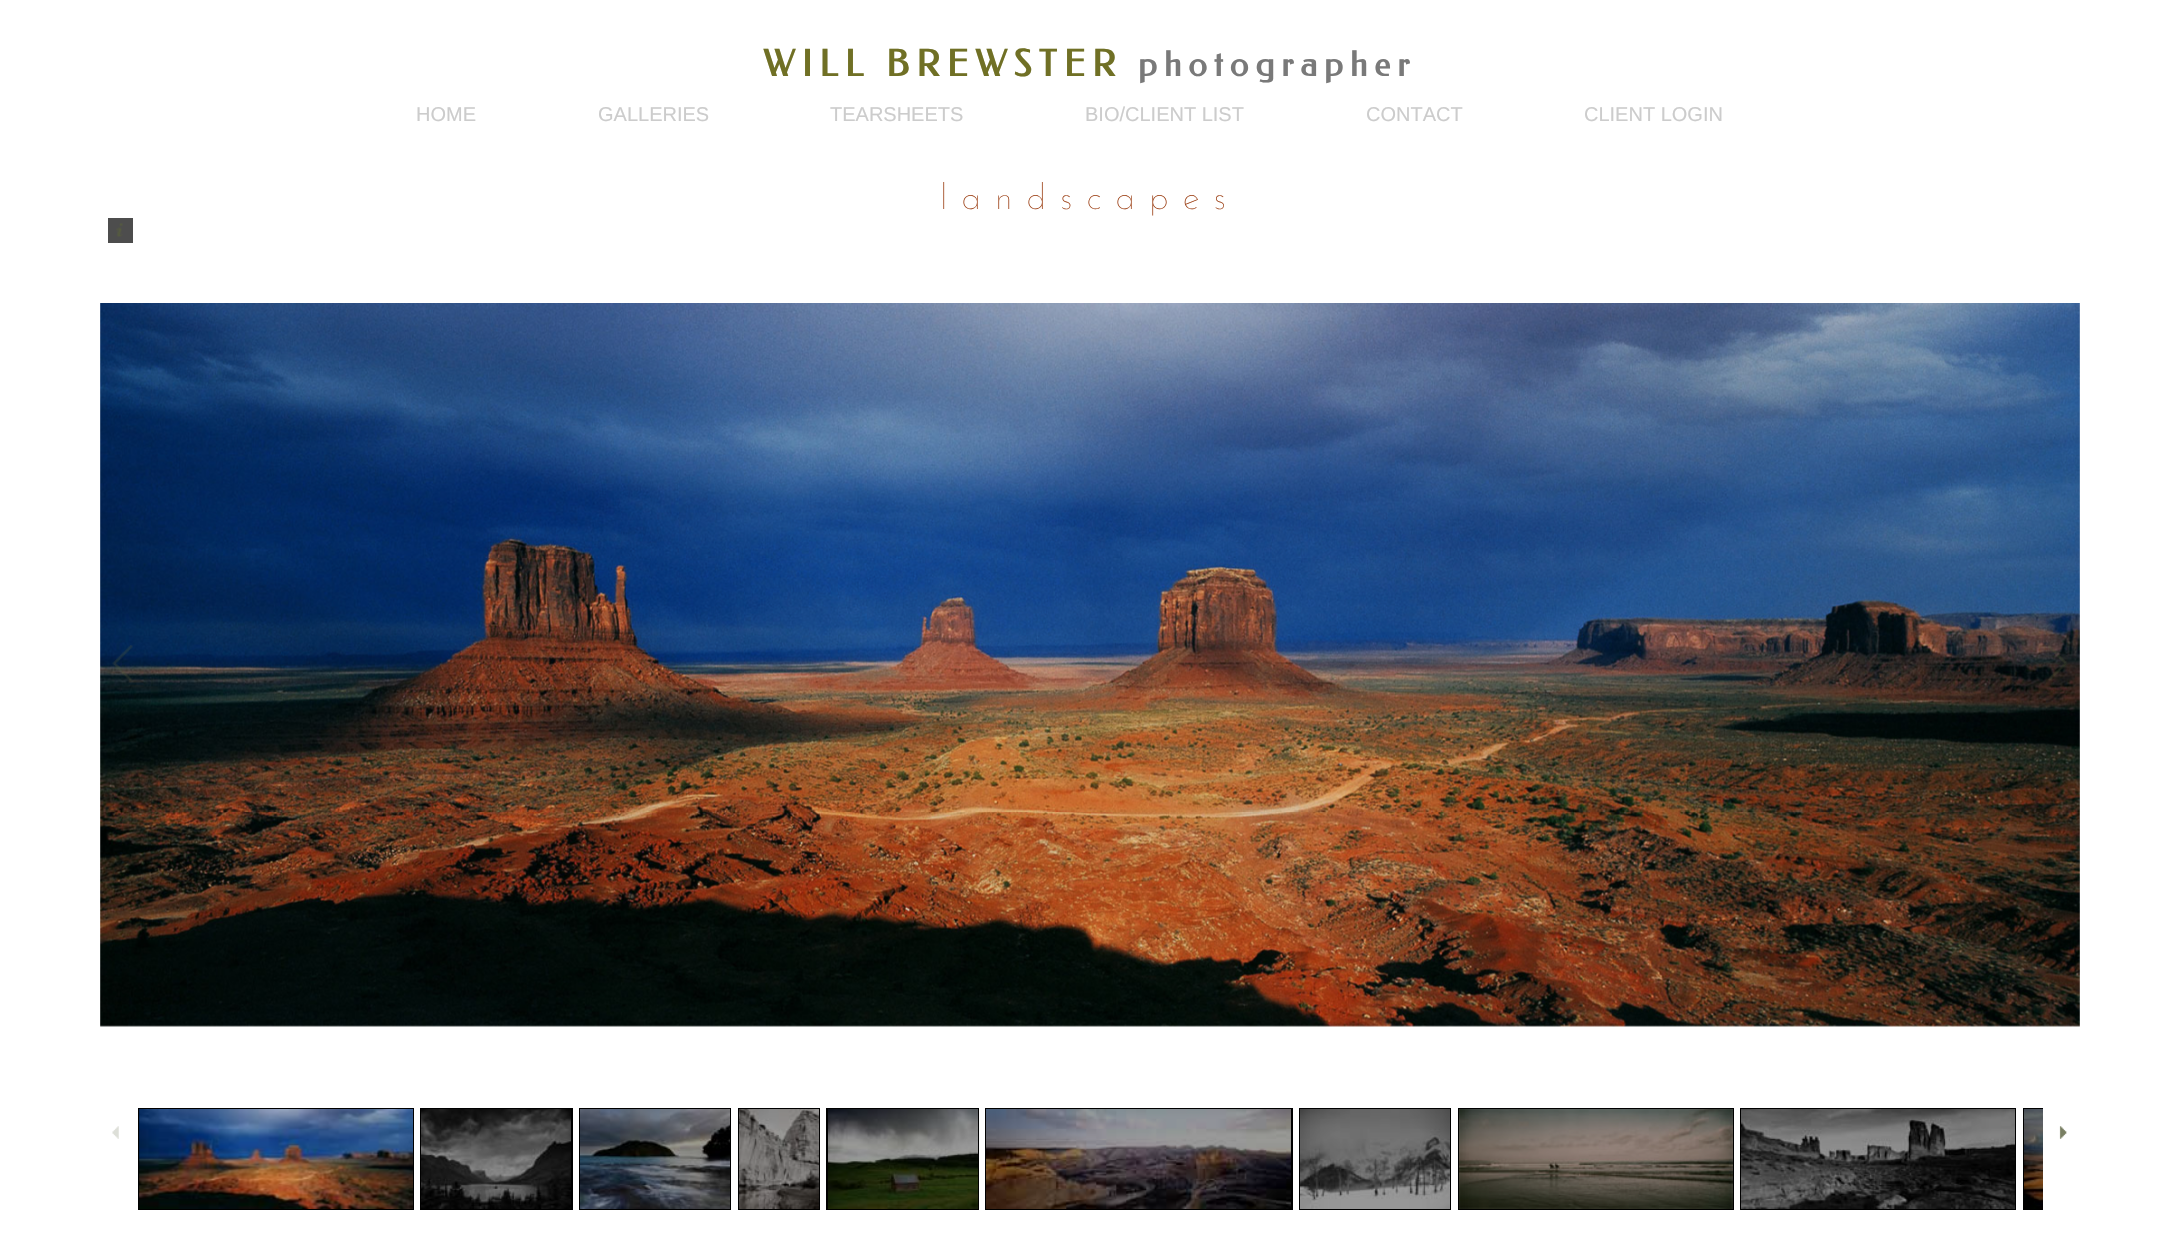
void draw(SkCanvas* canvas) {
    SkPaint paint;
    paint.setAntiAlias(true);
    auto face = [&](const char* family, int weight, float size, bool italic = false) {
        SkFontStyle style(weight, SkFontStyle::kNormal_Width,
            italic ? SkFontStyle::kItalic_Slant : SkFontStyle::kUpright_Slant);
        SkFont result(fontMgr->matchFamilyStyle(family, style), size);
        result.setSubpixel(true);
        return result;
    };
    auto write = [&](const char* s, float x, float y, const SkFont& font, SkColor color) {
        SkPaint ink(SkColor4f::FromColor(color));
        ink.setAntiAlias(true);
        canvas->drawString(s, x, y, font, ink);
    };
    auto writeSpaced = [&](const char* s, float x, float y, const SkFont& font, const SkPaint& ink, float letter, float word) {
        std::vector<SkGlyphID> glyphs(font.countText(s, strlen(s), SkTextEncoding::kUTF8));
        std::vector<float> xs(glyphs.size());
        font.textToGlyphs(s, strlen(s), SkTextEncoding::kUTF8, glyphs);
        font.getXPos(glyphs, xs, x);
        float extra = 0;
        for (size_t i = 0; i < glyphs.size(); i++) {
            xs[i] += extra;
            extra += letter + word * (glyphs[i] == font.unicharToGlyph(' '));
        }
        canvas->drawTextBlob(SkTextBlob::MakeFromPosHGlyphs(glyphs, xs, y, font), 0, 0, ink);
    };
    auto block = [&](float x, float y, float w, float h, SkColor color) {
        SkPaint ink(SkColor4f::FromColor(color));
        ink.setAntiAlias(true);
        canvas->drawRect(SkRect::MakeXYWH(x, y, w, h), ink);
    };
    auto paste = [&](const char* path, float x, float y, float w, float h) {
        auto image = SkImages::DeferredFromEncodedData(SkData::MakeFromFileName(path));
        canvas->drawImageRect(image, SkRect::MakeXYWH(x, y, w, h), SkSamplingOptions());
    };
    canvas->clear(SK_ColorWHITE);
    auto kFont1 = face("Federo", 700, 36);
    paint.setColor(SkColorSetRGB(112, 112, 37));
    writeSpaced("WILL BREWSTER", 763, 76, kFont1, paint, 7, 0);
    auto kFont2 = face("Federo", 700, 34);
    paint.setColor(SkColorSetRGB(121, 121, 121));
    writeSpaced("photographer", 1138, 76, kFont2, paint, 7, 0);
    auto kFont3 = face("Liberation Sans", 400, 20);
    write("HOME", 416, 121, kFont3, SkColorSetRGB(204, 204, 204));
    write("GALLERIES", 598, 121, kFont3, SkColorSetRGB(204, 204, 204));
    write("TEARSHEETS", 830, 121, kFont3, SkColorSetRGB(204, 204, 204));
    write("BIO/CLIENT LIST", 1085, 121, kFont3, SkColorSetRGB(204, 204, 204));
    write("CONTACT", 1366, 121, kFont3, SkColorSetRGB(204, 204, 204));
    write("CLIENT LOGIN", 1584, 121, kFont3, SkColorSetRGB(204, 204, 204));
    auto kFont4 = face("Josefin Sans", 100, 36);
    paint.setColor(SkColorSetRGB(157, 65, 22));
    writeSpaced("landscapes", 940, 209, kFont4, paint, 14, 0);
    block(108, 218, 25, 25, SkColorSetRGB(77, 77, 77));
    paste("pic1.png", 116, 223, 7, 14);
    paste("pic2.png", 100, 303, 1980, 724);
    paste("pic3.png", 112, 645, 21, 36);
    paste("pic4.png", 2048, 645, 20, 36);
    paste("pic5.png", 112, 1126, 7, 13);
    block(138, 1108, 276, 102, SK_ColorBLACK);
    paste("pic6.png", 139, 1109, 274, 100);
    block(420, 1108, 153, 102, SK_ColorBLACK);
    paste("pic7.png", 421, 1109, 150, 100);
    block(579, 1108, 152, 102, SK_ColorBLACK);
    paste("pic8.png", 580, 1109, 150, 100);
    block(738, 1108, 82, 102, SK_ColorBLACK);
    paste("pic9.png", 739, 1109, 80, 100);
    block(826, 1108, 153, 102, SK_ColorBLACK);
    paste("pic10.png", 828, 1109, 150, 100);
    block(985, 1108, 308, 102, SK_ColorBLACK);
    paste("pic11.png", 986, 1109, 305, 100);
    block(1299, 1108, 152, 102, SK_ColorBLACK);
    paste("pic12.png", 1300, 1109, 150, 100);
    block(1458, 1108, 276, 102, SK_ColorBLACK);
    paste("pic13.png", 1459, 1109, 274, 100);
    block(1740, 1108, 276, 102, SK_ColorBLACK);
    paste("pic14.png", 1741, 1109, 274, 100);
    block(2023, 1108, 20, 102, SK_ColorBLACK);
    paste("pic15.png", 2024, 1109, 19, 100);
    paste("pic16.png", 2059, 1126, 8, 13);
}
